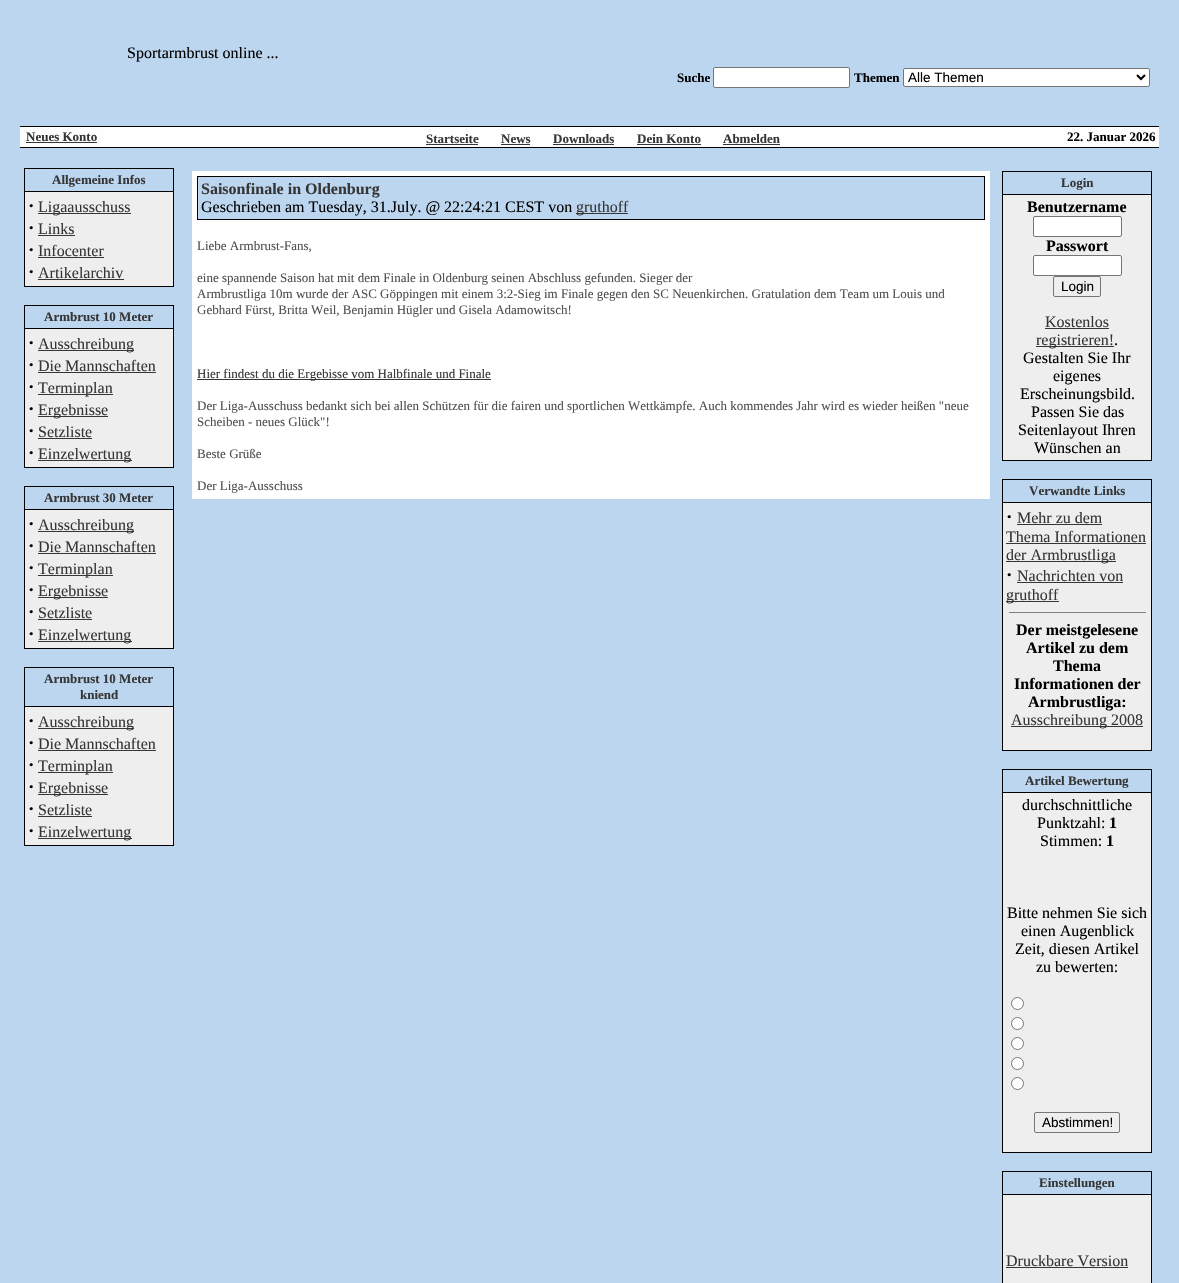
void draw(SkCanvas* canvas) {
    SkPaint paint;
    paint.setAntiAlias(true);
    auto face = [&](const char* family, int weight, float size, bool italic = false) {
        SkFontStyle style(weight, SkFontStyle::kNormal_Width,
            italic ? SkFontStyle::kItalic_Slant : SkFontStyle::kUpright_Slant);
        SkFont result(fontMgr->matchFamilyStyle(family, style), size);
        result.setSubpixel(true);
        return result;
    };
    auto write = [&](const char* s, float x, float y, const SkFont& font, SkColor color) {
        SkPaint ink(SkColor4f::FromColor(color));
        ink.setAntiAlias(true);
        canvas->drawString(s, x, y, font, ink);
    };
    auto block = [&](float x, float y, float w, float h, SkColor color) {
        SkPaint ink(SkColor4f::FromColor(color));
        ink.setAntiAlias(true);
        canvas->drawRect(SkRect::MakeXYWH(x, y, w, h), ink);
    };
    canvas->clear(SkColorSetRGB(189, 214, 239));
    auto kFont1 = face("Liberation Serif", 400, 16);
    write("Sportarmbrust online ...", 127, 58, kFont1, SK_ColorBLACK);
    auto kFont2 = face("Liberation Serif", 700, 13);
    write("Suche", 677, 82, kFont2, SK_ColorBLACK);
    paint.setColor(SK_ColorWHITE);
    canvas->drawRoundRect(SkRect::MakeXYWH(713.5f, 67.5f, 136, 20), 1.5f, 1.5f, paint);
    paint.setStyle(SkPaint::kStroke_Style);
    paint.setStrokeWidth(1);
    paint.setColor(SkColorSetRGB(118, 118, 118));
    canvas->drawRoundRect(SkRect::MakeXYWH(713.5f, 67.5f, 136, 20), 1.5f, 1.5f, paint);
    write("Themen", 854, 82, kFont2, SK_ColorBLACK);
    paint.setStyle(SkPaint::kFill_Style);
    paint.setColor(SK_ColorWHITE);
    canvas->drawRoundRect(SkRect::MakeXYWH(903.5f, 68.5f, 246, 18), 1.5f, 1.5f, paint);
    paint.setStyle(SkPaint::kStroke_Style);
    paint.setColor(SkColorSetRGB(118, 118, 118));
    canvas->drawRoundRect(SkRect::MakeXYWH(903.5f, 68.5f, 246, 18), 1.5f, 1.5f, paint);
    paint.setStrokeWidth(2);
    paint.setColor(SK_ColorBLACK);
    canvas->drawPath(SkPathBuilder().moveTo(1137, 75).lineTo(1141, 79).lineTo(1145, 75).detach(), paint);
    auto kFont3 = face("Liberation Sans", 400, 13.5f);
    write("Alle Themen", 908, 82, kFont3, SK_ColorBLACK);
    block(20, 127, 1139, 20, SkColorSetRGB(254, 254, 254));
    block(20, 126, 1139, 1, SK_ColorBLACK);
    write("Neues Konto", 26, 141, kFont2, SkColorSetRGB(54, 54, 54));
    block(26, 142, 71, 1, SkColorSetRGB(54, 54, 54));
    write("Startseite", 426, 143, kFont2, SkColorSetRGB(54, 54, 54));
    block(426, 144, 52, 1, SkColorSetRGB(54, 54, 54));
    write("News", 501, 143, kFont2, SkColorSetRGB(54, 54, 54));
    block(501, 144, 29, 1, SkColorSetRGB(54, 54, 54));
    write("Downloads", 553, 143, kFont2, SkColorSetRGB(54, 54, 54));
    block(553, 144, 61, 1, SkColorSetRGB(54, 54, 54));
    write("Dein Konto", 637, 143, kFont2, SkColorSetRGB(54, 54, 54));
    block(637, 144, 64, 1, SkColorSetRGB(54, 54, 54));
    write("Abmelden", 723, 143, kFont2, SkColorSetRGB(54, 54, 54));
    block(723, 144, 57, 1, SkColorSetRGB(54, 54, 54));
    write("22. Januar 2026", 1067, 141, kFont2, SK_ColorBLACK);
    block(20, 147, 1139, 1, SK_ColorBLACK);
    block(24, 168, 150, 119, SK_ColorBLACK);
    block(25, 169, 148, 22, SkColorSetRGB(189, 214, 239));
    write("Allgemeine Infos", 52, 184, kFont2, SkColorSetRGB(54, 54, 54));
    block(25, 192, 148, 94, SkColorSetRGB(238, 238, 238));
    auto kFont4 = face("Liberation Serif", 700, 19);
    write("·", 28, 212, kFont4, SK_ColorBLACK);
    block(38, 213, 93, 1, SkColorSetRGB(54, 54, 54));
    write("Ligaausschuss", 38, 212, kFont1, SkColorSetRGB(54, 54, 54));
    write("·", 28, 234, kFont4, SK_ColorBLACK);
    write("Links", 38, 234, kFont1, SkColorSetRGB(54, 54, 54));
    block(38, 235, 37, 1, SkColorSetRGB(54, 54, 54));
    write("·", 28, 256, kFont4, SK_ColorBLACK);
    write("Infocenter", 38, 256, kFont1, SkColorSetRGB(54, 54, 54));
    block(38, 257, 66, 1, SkColorSetRGB(54, 54, 54));
    write("·", 28, 278, kFont4, SK_ColorBLACK);
    write("Artikelarchiv", 38, 278, kFont1, SkColorSetRGB(54, 54, 54));
    block(38, 279, 86, 1, SkColorSetRGB(54, 54, 54));
    block(24, 305, 150, 163, SK_ColorBLACK);
    block(25, 306, 148, 22, SkColorSetRGB(189, 214, 239));
    write("Armbrust 10 Meter", 44, 321, kFont2, SkColorSetRGB(54, 54, 54));
    block(25, 329, 148, 138, SkColorSetRGB(238, 238, 238));
    write("·", 28, 349, kFont4, SK_ColorBLACK);
    block(38, 350, 96, 1, SkColorSetRGB(54, 54, 54));
    write("Ausschreibung", 38, 349, kFont1, SkColorSetRGB(54, 54, 54));
    write("·", 28, 371, kFont4, SK_ColorBLACK);
    write("Die Mannschaften", 38, 371, kFont1, SkColorSetRGB(54, 54, 54));
    block(38, 372, 118, 1, SkColorSetRGB(54, 54, 54));
    write("·", 28, 393, kFont4, SK_ColorBLACK);
    block(38, 394, 75, 1, SkColorSetRGB(54, 54, 54));
    write("Terminplan", 38, 393, kFont1, SkColorSetRGB(54, 54, 54));
    write("·", 28, 415, kFont4, SK_ColorBLACK);
    block(38, 416, 70, 1, SkColorSetRGB(54, 54, 54));
    write("Ergebnisse", 38, 415, kFont1, SkColorSetRGB(54, 54, 54));
    write("·", 28, 437, kFont4, SK_ColorBLACK);
    write("Setzliste", 38, 437, kFont1, SkColorSetRGB(54, 54, 54));
    block(38, 438, 54, 1, SkColorSetRGB(54, 54, 54));
    write("·", 28, 459, kFont4, SK_ColorBLACK);
    block(38, 460, 94, 1, SkColorSetRGB(54, 54, 54));
    write("Einzelwertung", 38, 459, kFont1, SkColorSetRGB(54, 54, 54));
    block(24, 486, 150, 163, SK_ColorBLACK);
    block(25, 487, 148, 22, SkColorSetRGB(189, 214, 239));
    write("Armbrust 30 Meter", 44, 502, kFont2, SkColorSetRGB(54, 54, 54));
    block(25, 510, 148, 138, SkColorSetRGB(238, 238, 238));
    write("·", 28, 530, kFont4, SK_ColorBLACK);
    block(38, 531, 96, 1, SkColorSetRGB(54, 54, 54));
    write("Ausschreibung", 38, 530, kFont1, SkColorSetRGB(54, 54, 54));
    write("·", 28, 552, kFont4, SK_ColorBLACK);
    write("Die Mannschaften", 38, 552, kFont1, SkColorSetRGB(54, 54, 54));
    block(38, 553, 118, 1, SkColorSetRGB(54, 54, 54));
    write("·", 28, 574, kFont4, SK_ColorBLACK);
    block(38, 575, 75, 1, SkColorSetRGB(54, 54, 54));
    write("Terminplan", 38, 574, kFont1, SkColorSetRGB(54, 54, 54));
    write("·", 28, 596, kFont4, SK_ColorBLACK);
    block(38, 597, 70, 1, SkColorSetRGB(54, 54, 54));
    write("Ergebnisse", 38, 596, kFont1, SkColorSetRGB(54, 54, 54));
    write("·", 28, 618, kFont4, SK_ColorBLACK);
    write("Setzliste", 38, 618, kFont1, SkColorSetRGB(54, 54, 54));
    block(38, 619, 54, 1, SkColorSetRGB(54, 54, 54));
    write("·", 28, 640, kFont4, SK_ColorBLACK);
    block(38, 641, 94, 1, SkColorSetRGB(54, 54, 54));
    write("Einzelwertung", 38, 640, kFont1, SkColorSetRGB(54, 54, 54));
    block(24, 667, 150, 179, SK_ColorBLACK);
    block(25, 668, 148, 38, SkColorSetRGB(189, 214, 239));
    write("Armbrust 10 Meter", 44, 683, kFont2, SkColorSetRGB(54, 54, 54));
    write("kniend", 80, 699, kFont2, SkColorSetRGB(54, 54, 54));
    block(25, 707, 148, 138, SkColorSetRGB(238, 238, 238));
    write("·", 28, 727, kFont4, SK_ColorBLACK);
    block(38, 728, 96, 1, SkColorSetRGB(54, 54, 54));
    write("Ausschreibung", 38, 727, kFont1, SkColorSetRGB(54, 54, 54));
    write("·", 28, 749, kFont4, SK_ColorBLACK);
    write("Die Mannschaften", 38, 749, kFont1, SkColorSetRGB(54, 54, 54));
    block(38, 750, 118, 1, SkColorSetRGB(54, 54, 54));
    write("·", 28, 771, kFont4, SK_ColorBLACK);
    block(38, 772, 75, 1, SkColorSetRGB(54, 54, 54));
    write("Terminplan", 38, 771, kFont1, SkColorSetRGB(54, 54, 54));
    write("·", 28, 793, kFont4, SK_ColorBLACK);
    block(38, 794, 70, 1, SkColorSetRGB(54, 54, 54));
    write("Ergebnisse", 38, 793, kFont1, SkColorSetRGB(54, 54, 54));
    write("·", 28, 815, kFont4, SK_ColorBLACK);
    write("Setzliste", 38, 815, kFont1, SkColorSetRGB(54, 54, 54));
    block(38, 816, 54, 1, SkColorSetRGB(54, 54, 54));
    write("·", 28, 837, kFont4, SK_ColorBLACK);
    block(38, 838, 94, 1, SkColorSetRGB(54, 54, 54));
    write("Einzelwertung", 38, 837, kFont1, SkColorSetRGB(54, 54, 54));
    block(192, 171, 798, 328, SK_ColorWHITE);
    block(197, 176, 788, 44, SK_ColorBLACK);
    block(198, 177, 786, 42, SkColorSetRGB(189, 214, 239));
    auto kFont5 = face("Liberation Serif", 700, 16);
    write("Saisonfinale in Oldenburg", 201, 194, kFont5, SkColorSetRGB(54, 54, 54));
    write("Geschrieben am Tuesday, 31.July. @ 22:24:21 CEST von", 201, 212, kFont1, SK_ColorBLACK);
    block(576, 213, 52, 1, SkColorSetRGB(54, 54, 54));
    write("gruthoff", 576, 212, kFont1, SkColorSetRGB(54, 54, 54));
    auto kFont6 = face("Liberation Serif", 400, 13);
    write("Liebe Armbrust-Fans,", 197, 250, kFont6, SkColorSetRGB(80, 80, 80));
    write("eine spannende Saison hat mit dem Finale in Oldenburg seinen Abschluss gefunden. Sieger der", 197, 282, kFont6, SkColorSetRGB(80, 80, 80));
    write("Armbrustliga 10m wurde der ASC Göppingen mit einem 3:2-Sieg im Finale gegen den SC Neuenkirchen. Gratulation dem Team um Louis und", 197, 298, kFont6, SkColorSetRGB(80, 80, 80));
    write("Gebhard Fürst, Britta Weil, Benjamin Hügler und Gisela Adamowitsch!", 197, 314, kFont6, SkColorSetRGB(80, 80, 80));
    block(197, 379, 294, 1, SkColorSetRGB(54, 54, 54));
    write("Hier findest du die Ergebisse vom Halbfinale und Finale", 197, 378, kFont6, SkColorSetRGB(54, 54, 54));
    write("Der Liga-Ausschuss bedankt sich bei allen Schützen für die fairen und sportlichen Wettkämpfe. Auch kommendes Jahr wird es wieder heißen \"neue", 197, 410, kFont6, SkColorSetRGB(80, 80, 80));
    write("Scheiben - neues Glück\"!", 197, 426, kFont6, SkColorSetRGB(80, 80, 80));
    write("Beste Grüße", 197, 458, kFont6, SkColorSetRGB(80, 80, 80));
    write("Der Liga-Ausschuss", 197, 490, kFont6, SkColorSetRGB(80, 80, 80));
    block(1002, 171, 150, 290, SK_ColorBLACK);
    block(1003, 172, 148, 22, SkColorSetRGB(189, 214, 239));
    write("Login", 1061, 187, kFont2, SkColorSetRGB(54, 54, 54));
    block(1003, 195, 148, 265, SkColorSetRGB(238, 238, 238));
    write("Benutzername", 1027, 212, kFont5, SK_ColorBLACK);
    paint.setStyle(SkPaint::kFill_Style);
    paint.setColor(SK_ColorWHITE);
    canvas->drawRoundRect(SkRect::MakeXYWH(1033.5f, 216.5f, 88, 20), 1.5f, 1.5f, paint);
    paint.setStyle(SkPaint::kStroke_Style);
    paint.setStrokeWidth(1);
    paint.setColor(SkColorSetRGB(118, 118, 118));
    canvas->drawRoundRect(SkRect::MakeXYWH(1033.5f, 216.5f, 88, 20), 1.5f, 1.5f, paint);
    write("Passwort", 1046, 251, kFont5, SK_ColorBLACK);
    paint.setStyle(SkPaint::kFill_Style);
    paint.setColor(SK_ColorWHITE);
    canvas->drawRoundRect(SkRect::MakeXYWH(1033.5f, 255.5f, 88, 20), 1.5f, 1.5f, paint);
    paint.setStyle(SkPaint::kStroke_Style);
    paint.setColor(SkColorSetRGB(118, 118, 118));
    canvas->drawRoundRect(SkRect::MakeXYWH(1033.5f, 255.5f, 88, 20), 1.5f, 1.5f, paint);
    canvas->drawRoundRect(SkRect::MakeXYWH(1053.5f, 276.5f, 47, 20), 1.5f, 1.5f, paint);
    write("Login", 1061, 291, kFont3, SK_ColorBLACK);
    write("Kostenlos", 1045, 327, kFont1, SkColorSetRGB(54, 54, 54));
    block(1045, 328, 64, 1, SkColorSetRGB(54, 54, 54));
    block(1036, 346, 78, 1, SkColorSetRGB(54, 54, 54));
    write("registrieren!", 1036, 345, kFont1, SkColorSetRGB(54, 54, 54));
    write(".", 1114, 345, kFont1, SK_ColorBLACK);
    write("Gestalten Sie Ihr", 1023, 363, kFont1, SK_ColorBLACK);
    write("eigenes", 1053, 381, kFont1, SK_ColorBLACK);
    write("Erscheinungsbild.", 1020, 399, kFont1, SK_ColorBLACK);
    write("Passen Sie das", 1031, 417, kFont1, SK_ColorBLACK);
    write("Seitenlayout Ihren", 1018, 435, kFont1, SK_ColorBLACK);
    write("Wünschen an", 1034, 453, kFont1, SK_ColorBLACK);
    block(1002, 479, 150, 272, SK_ColorBLACK);
    block(1003, 480, 148, 22, SkColorSetRGB(189, 214, 239));
    write("Verwandte Links", 1029, 495, kFont2, SkColorSetRGB(54, 54, 54));
    block(1003, 503, 148, 247, SkColorSetRGB(238, 238, 238));
    write("·", 1006, 523, kFont4, SK_ColorBLACK);
    write("Mehr zu dem", 1017, 523, kFont1, SkColorSetRGB(54, 54, 54));
    block(1017, 524, 85, 1, SkColorSetRGB(54, 54, 54));
    write("Thema Informationen", 1006, 542, kFont1, SkColorSetRGB(54, 54, 54));
    block(1006, 543, 140, 1, SkColorSetRGB(54, 54, 54));
    block(1006, 561, 110, 1, SkColorSetRGB(54, 54, 54));
    write("der Armbrustliga", 1006, 560, kFont1, SkColorSetRGB(54, 54, 54));
    write("·", 1006, 581, kFont4, SK_ColorBLACK);
    write("Nachrichten von", 1017, 581, kFont1, SkColorSetRGB(54, 54, 54));
    block(1017, 582, 106, 1, SkColorSetRGB(54, 54, 54));
    block(1006, 601, 53, 1, SkColorSetRGB(54, 54, 54));
    write("gruthoff", 1006, 600, kFont1, SkColorSetRGB(54, 54, 54));
    block(1009, 612, 137, 1, SkColorSetRGB(128, 128, 128));
    write("Der meistgelesene", 1016, 635, kFont5, SK_ColorBLACK);
    write("Artikel zu dem", 1026, 653, kFont5, SK_ColorBLACK);
    write("Thema", 1053, 671, kFont5, SK_ColorBLACK);
    write("Informationen der", 1014, 689, kFont5, SK_ColorBLACK);
    write("Armbrustliga:", 1028, 707, kFont5, SK_ColorBLACK);
    block(1011, 726, 132, 1, SkColorSetRGB(54, 54, 54));
    write("Ausschreibung 2008", 1011, 725, kFont1, SkColorSetRGB(54, 54, 54));
    block(1002, 769, 150, 384, SK_ColorBLACK);
    block(1003, 770, 148, 22, SkColorSetRGB(189, 214, 239));
    write("Artikel Bewertung", 1025, 785, kFont2, SkColorSetRGB(54, 54, 54));
    block(1003, 793, 148, 359, SkColorSetRGB(238, 238, 238));
    write("durchschnittliche", 1022, 810, kFont1, SK_ColorBLACK);
    write("Punktzahl:", 1037, 828, kFont1, SK_ColorBLACK);
    write("1", 1109, 828, kFont5, SK_ColorBLACK);
    write("Stimmen:", 1040, 846, kFont1, SK_ColorBLACK);
    write("1", 1106, 846, kFont5, SK_ColorBLACK);
    write("Bitte nehmen Sie sich", 1007, 918, kFont1, SK_ColorBLACK);
    write("einen Augenblick", 1021, 936, kFont1, SK_ColorBLACK);
    write("Zeit, diesen Artikel", 1015, 954, kFont1, SK_ColorBLACK);
    write("zu bewerten:", 1036, 972, kFont1, SK_ColorBLACK);
    paint.setStyle(SkPaint::kFill_Style);
    paint.setColor(SK_ColorWHITE);
    canvas->drawCircle(1017.5f, 1003.5f, 6, paint);
    paint.setStyle(SkPaint::kStroke_Style);
    paint.setColor(SkColorSetRGB(118, 118, 118));
    canvas->drawCircle(1017.5f, 1003.5f, 6, paint);
    paint.setStyle(SkPaint::kFill_Style);
    paint.setColor(SK_ColorWHITE);
    canvas->drawCircle(1017.5f, 1023.5f, 6, paint);
    paint.setStyle(SkPaint::kStroke_Style);
    paint.setColor(SkColorSetRGB(118, 118, 118));
    canvas->drawCircle(1017.5f, 1023.5f, 6, paint);
    paint.setStyle(SkPaint::kFill_Style);
    paint.setColor(SK_ColorWHITE);
    canvas->drawCircle(1017.5f, 1043.5f, 6, paint);
    paint.setStyle(SkPaint::kStroke_Style);
    paint.setColor(SkColorSetRGB(118, 118, 118));
    canvas->drawCircle(1017.5f, 1043.5f, 6, paint);
    paint.setStyle(SkPaint::kFill_Style);
    paint.setColor(SK_ColorWHITE);
    canvas->drawCircle(1017.5f, 1063.5f, 6, paint);
    paint.setStyle(SkPaint::kStroke_Style);
    paint.setColor(SkColorSetRGB(118, 118, 118));
    canvas->drawCircle(1017.5f, 1063.5f, 6, paint);
    paint.setStyle(SkPaint::kFill_Style);
    paint.setColor(SK_ColorWHITE);
    canvas->drawCircle(1017.5f, 1083.5f, 6, paint);
    paint.setStyle(SkPaint::kStroke_Style);
    paint.setColor(SkColorSetRGB(118, 118, 118));
    canvas->drawCircle(1017.5f, 1083.5f, 6, paint);
    canvas->drawRoundRect(SkRect::MakeXYWH(1034.5f, 1112.5f, 85, 20), 1.5f, 1.5f, paint);
    write("Abstimmen!", 1042, 1127, kFont3, SK_ColorBLACK);
    block(1002, 1171, 150, 112, SK_ColorBLACK);
    block(1003, 1172, 148, 22, SkColorSetRGB(189, 214, 239));
    write("Einstellungen", 1039, 1187, kFont2, SkColorSetRGB(54, 54, 54));
    block(1003, 1195, 148, 88, SkColorSetRGB(238, 238, 238));
    write("Druckbare Version", 1006, 1266, kFont1, SkColorSetRGB(54, 54, 54));
    block(1006, 1267, 122, 1, SkColorSetRGB(54, 54, 54));
}
